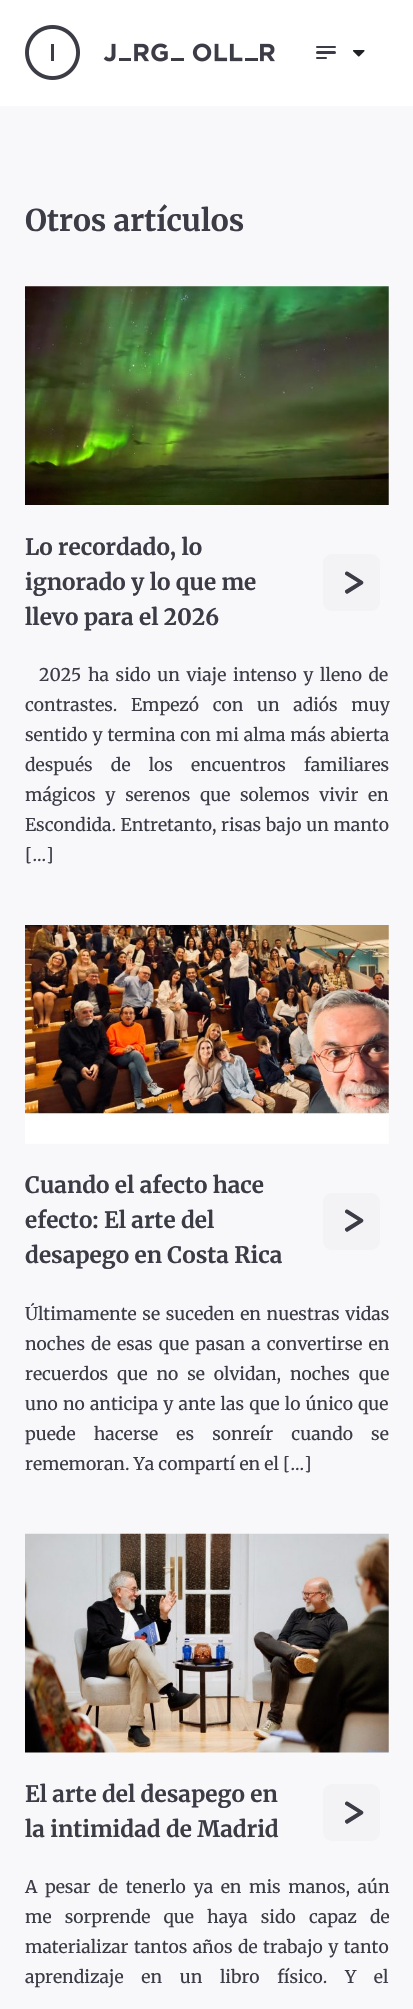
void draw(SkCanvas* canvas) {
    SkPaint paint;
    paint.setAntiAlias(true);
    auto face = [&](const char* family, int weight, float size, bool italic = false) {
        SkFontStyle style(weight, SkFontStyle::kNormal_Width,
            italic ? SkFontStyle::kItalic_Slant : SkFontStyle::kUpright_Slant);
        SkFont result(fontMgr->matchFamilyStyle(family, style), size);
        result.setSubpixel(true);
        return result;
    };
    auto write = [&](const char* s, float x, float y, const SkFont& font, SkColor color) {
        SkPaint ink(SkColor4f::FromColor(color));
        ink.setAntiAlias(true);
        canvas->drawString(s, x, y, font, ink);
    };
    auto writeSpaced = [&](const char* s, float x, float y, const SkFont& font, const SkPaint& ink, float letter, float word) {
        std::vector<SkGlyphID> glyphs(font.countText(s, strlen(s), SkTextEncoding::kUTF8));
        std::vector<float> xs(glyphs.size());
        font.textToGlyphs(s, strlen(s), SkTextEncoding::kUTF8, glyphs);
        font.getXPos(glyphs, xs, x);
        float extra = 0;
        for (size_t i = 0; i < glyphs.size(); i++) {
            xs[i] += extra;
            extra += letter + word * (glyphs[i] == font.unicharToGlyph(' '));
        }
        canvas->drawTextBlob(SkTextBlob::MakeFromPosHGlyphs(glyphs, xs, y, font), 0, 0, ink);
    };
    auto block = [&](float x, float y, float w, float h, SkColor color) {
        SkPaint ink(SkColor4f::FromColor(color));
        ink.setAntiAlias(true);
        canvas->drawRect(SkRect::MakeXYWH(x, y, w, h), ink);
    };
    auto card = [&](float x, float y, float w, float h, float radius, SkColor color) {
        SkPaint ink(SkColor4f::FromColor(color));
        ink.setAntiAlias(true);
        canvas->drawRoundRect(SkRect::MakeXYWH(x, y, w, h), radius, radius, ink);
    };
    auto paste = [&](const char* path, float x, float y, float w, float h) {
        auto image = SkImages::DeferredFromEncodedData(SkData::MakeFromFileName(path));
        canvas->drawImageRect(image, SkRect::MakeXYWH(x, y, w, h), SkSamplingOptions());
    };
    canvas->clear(SK_ColorWHITE);
    paste("pic1.png", 25, 25, 250, 55);
    card(316, 46, 20, 2, 1, SkColorSetRGB(60, 60, 70));
    card(316, 51, 20, 3, 1.5f, SkColorSetRGB(60, 60, 70));
    card(316, 57, 11, 2, 1, SkColorSetRGB(60, 60, 70));
    paste("pic2.png", 353, 50, 12, 7);
    block(0, 106, 413, 1903, SkColorSetRGB(248, 248, 250));
    auto kFont1 = face("Merriweather", 700, 30);
    write("Otros artículos", 25, 231, kFont1, SkColorSetRGB(60, 60, 70));
    paste("pic3.png", 25, 286, 364, 219);
    auto kFont2 = face("Merriweather", 700, 22.5f);
    write("Lo recordado, lo", 25, 555, kFont2, SkColorSetRGB(60, 60, 70));
    write("ignorado y lo que me", 25, 590, kFont2, SkColorSetRGB(60, 60, 70));
    write("llevo para el 2026", 25, 625, kFont2, SkColorSetRGB(60, 60, 70));
    card(323, 554, 57, 57, 9, SkColorSetRGB(243, 243, 246));
    auto kFont3 = face("Flamenco", 700, 50);
    write(">", 342, 595, kFont3, SkColorSetRGB(60, 60, 70));
    auto kFont4 = face("Merriweather", 400, 17.5f);
    paint.setColor(SkColorSetRGB(60, 60, 70));
    writeSpaced("2025 ha sido un viaje intenso y lleno de", 39, 681, kFont4, paint, 0, 2.5f);
    writeSpaced("contrastes. Empezó con un adiós muy", 25, 711, kFont4, paint, 0, 9.5f);
    writeSpaced("sentido y termina con mi alma más abierta", 25, 741, kFont4, paint, 0, 0.75f);
    writeSpaced("después de los encuentros familiares", 25, 771, kFont4, paint, 0, 14);
    writeSpaced("mágicos y serenos que solemos vivir en", 25, 801, kFont4, paint, 0, 5.5f);
    writeSpaced("Escondida. Entretanto, risas bajo un manto", 25, 831, kFont4, paint, 0, 0.5f);
    write("[...]", 25, 861, kFont4, SkColorSetRGB(60, 60, 70));
    paste("pic4.png", 25, 925, 364, 219);
    write("Cuando el afecto hace", 25, 1193, kFont2, SkColorSetRGB(60, 60, 70));
    write("efecto: El arte del", 25, 1228, kFont2, SkColorSetRGB(60, 60, 70));
    write("desapego en Costa Rica", 25, 1263, kFont2, SkColorSetRGB(60, 60, 70));
    card(323, 1193, 57, 57, 9, SkColorSetRGB(243, 243, 246));
    write(">", 342, 1233, kFont3, SkColorSetRGB(60, 60, 70));
    writeSpaced("Últimamente se suceden en nuestras vidas", 25, 1320, kFont4, paint, 0, 1.5f);
    writeSpaced("noches de esas que pasan a convertirse en", 25, 1350, kFont4, paint, 0, 2);
    writeSpaced("recuerdos que no se olvidan, noches que", 25, 1380, kFont4, paint, 0, 4.75f);
    writeSpaced("uno no anticipa y ante las que lo único que", 25, 1410, kFont4, paint, 0, 1);
    writeSpaced("puede hacerse es sonreír cuando se", 25, 1440, kFont4, paint, 0, 14);
    write("rememoran. Ya compartí en el [...]", 25, 1470, kFont4, SkColorSetRGB(60, 60, 70));
    paste("pic5.png", 25, 1533, 364, 220);
    write("El arte del desapego en", 25, 1802, kFont2, SkColorSetRGB(60, 60, 70));
    write("la intimidad de Madrid", 25, 1837, kFont2, SkColorSetRGB(60, 60, 70));
    card(323, 1784, 57, 57, 9, SkColorSetRGB(243, 243, 246));
    write(">", 342, 1825, kFont3, SkColorSetRGB(60, 60, 70));
    writeSpaced("A pesar de tenerlo ya en mis manos, aún", 25, 1893, kFont4, paint, 0, 3.5f);
    writeSpaced("me sorprende que haya sido capaz de", 25, 1923, kFont4, paint, 0, 9);
    writeSpaced("materializar tantos años de trabajo y tanto", 25, 1953, kFont4, paint, 0, 1.25f);
    writeSpaced("aprendizaje en un libro físico. Y el", 25, 1983, kFont4, paint, 0, 13.5f);
}
